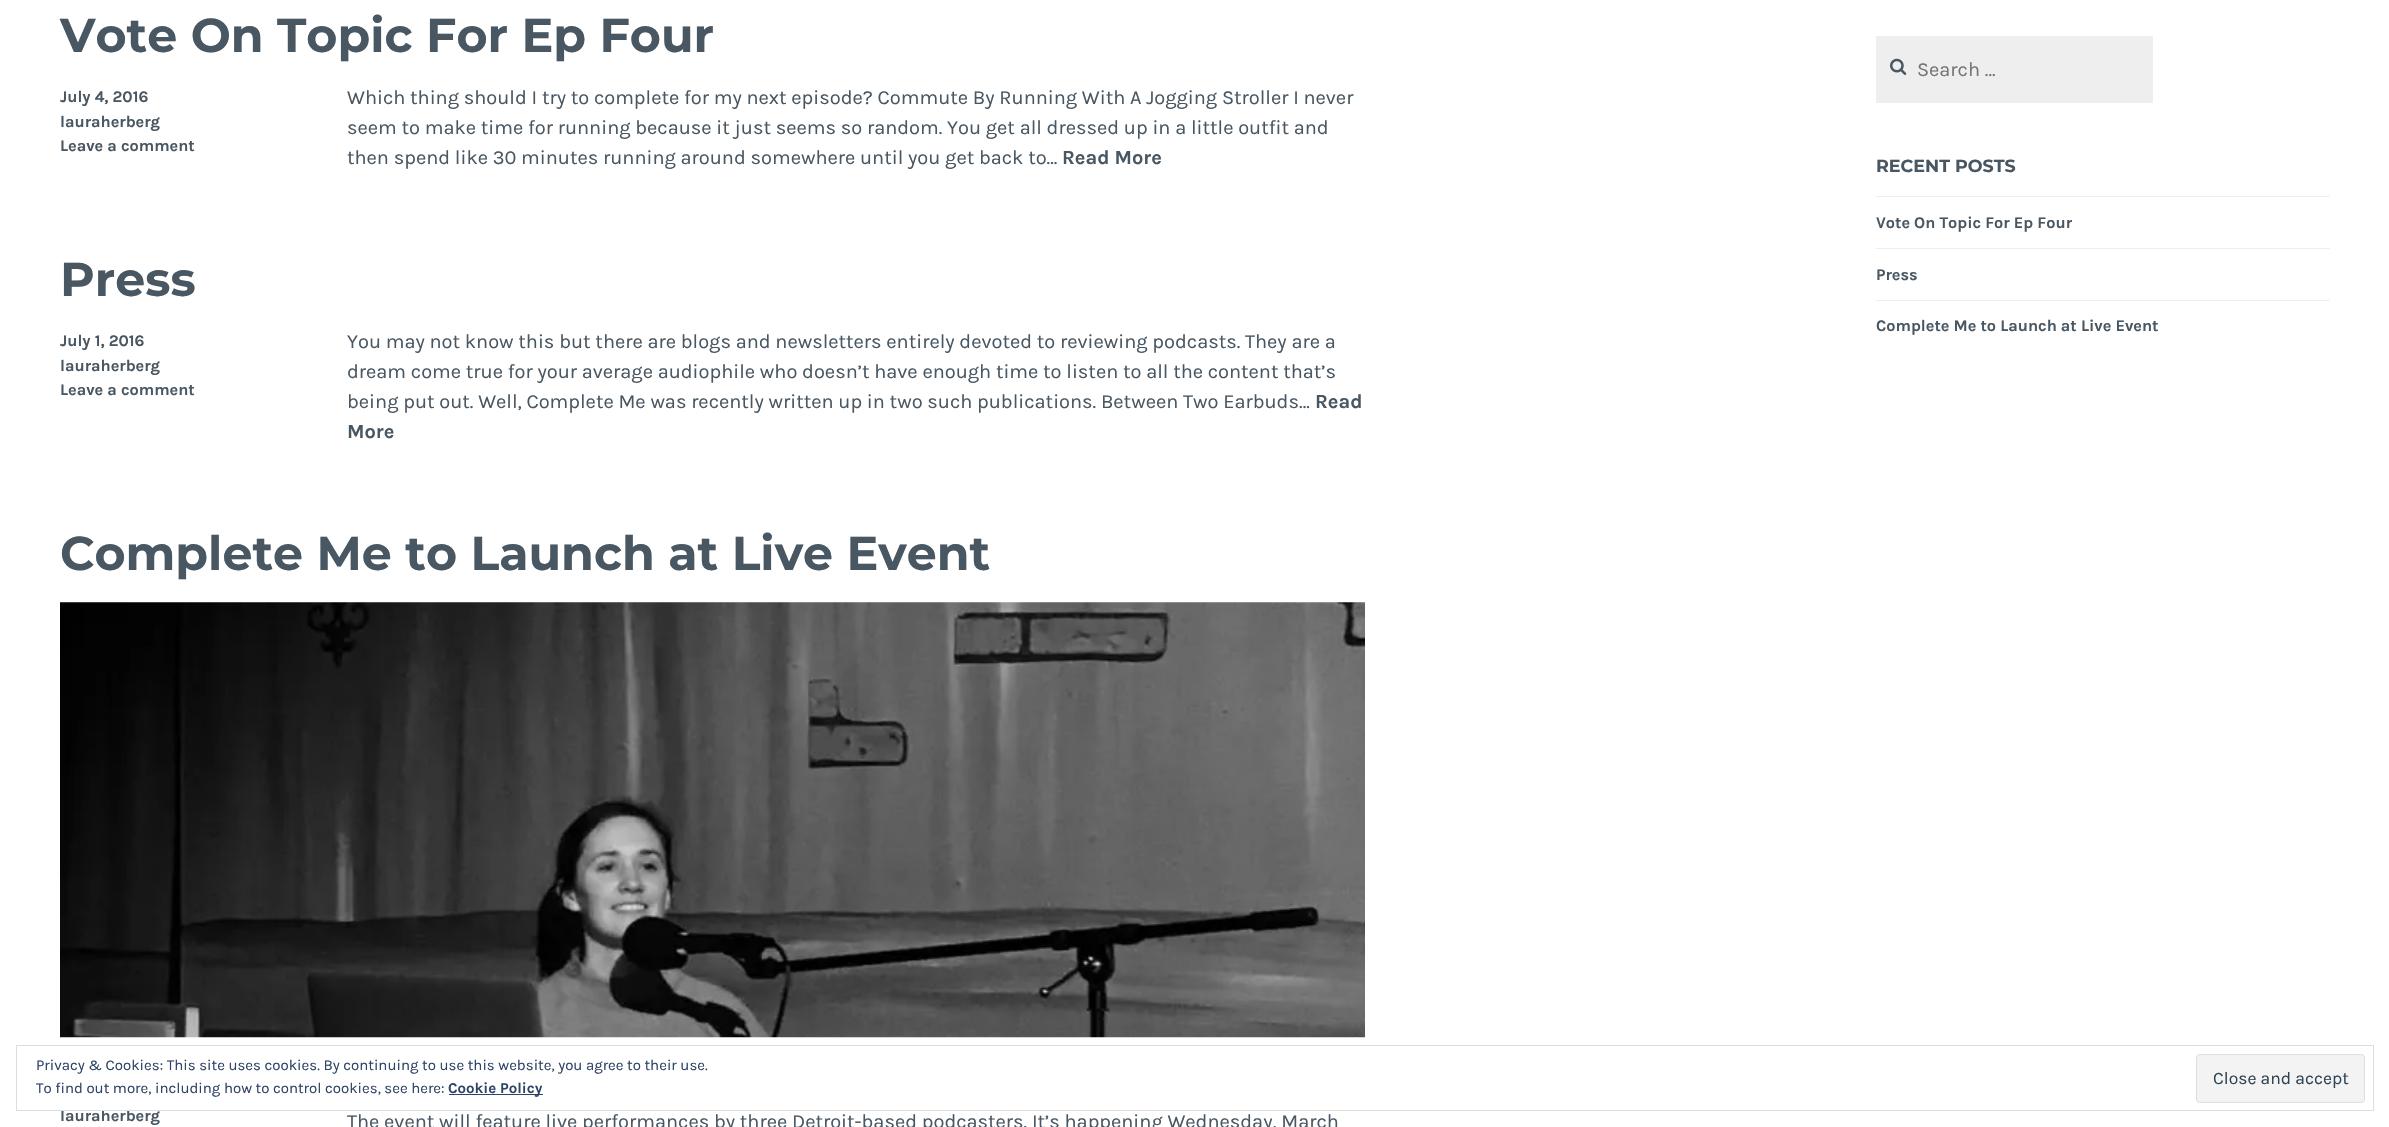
void draw(SkCanvas* canvas) {
    SkPaint paint;
    paint.setAntiAlias(true);
    auto face = [&](const char* family, int weight, float size, bool italic = false) {
        SkFontStyle style(weight, SkFontStyle::kNormal_Width,
            italic ? SkFontStyle::kItalic_Slant : SkFontStyle::kUpright_Slant);
        SkFont result(fontMgr->matchFamilyStyle(family, style), size);
        result.setSubpixel(true);
        return result;
    };
    auto write = [&](const char* s, float x, float y, const SkFont& font, SkColor color) {
        SkPaint ink(SkColor4f::FromColor(color));
        ink.setAntiAlias(true);
        canvas->drawString(s, x, y, font, ink);
    };
    auto block = [&](float x, float y, float w, float h, SkColor color) {
        SkPaint ink(SkColor4f::FromColor(color));
        ink.setAntiAlias(true);
        canvas->drawRect(SkRect::MakeXYWH(x, y, w, h), ink);
    };
    auto paste = [&](const char* path, float x, float y, float w, float h) {
        auto image = SkImages::DeferredFromEncodedData(SkData::MakeFromFileName(path));
        canvas->drawImageRect(image, SkRect::MakeXYWH(x, y, w, h), SkSamplingOptions());
    };
    canvas->clear(SK_ColorWHITE);
    auto kFont1 = face("Montserrat", 700, 47.5f);
    write("Vote On Topic For Ep Four", 60, 52, kFont1, SkColorSetRGB(73, 87, 98));
    auto kFont2 = face("Karla", 700, 16.25f);
    write("July 4, 2016", 60, 102, kFont2, SkColorSetRGB(73, 87, 98));
    write("lauraherberg", 60, 127, kFont2, SkColorSetRGB(73, 87, 98));
    write("Leave a comment", 60, 151, kFont2, SkColorSetRGB(73, 87, 98));
    auto kFont3 = face("Karla", 400, 20);
    write("Which thing should I try to complete for my next episode? Commute By Running With A Jogging Stroller I never", 347, 104, kFont3, SkColorSetRGB(73, 87, 98));
    write("seem to make time for running because it just seems so random. You get all dressed up in a little outfit and", 347, 134, kFont3, SkColorSetRGB(73, 87, 98));
    write("then spend like 30 minutes running around somewhere until you get back to…", 347, 164, kFont3, SkColorSetRGB(73, 87, 98));
    auto kFont4 = face("Karla", 700, 20);
    write("Read More", 1062, 164, kFont4, SkColorSetRGB(73, 87, 98));
    write("Press", 60, 296, kFont1, SkColorSetRGB(73, 87, 98));
    write("July 1, 2016", 60, 346, kFont2, SkColorSetRGB(73, 87, 98));
    write("lauraherberg", 60, 371, kFont2, SkColorSetRGB(73, 87, 98));
    write("Leave a comment", 60, 395, kFont2, SkColorSetRGB(73, 87, 98));
    write("You may not know this but there are blogs and newsletters entirely devoted to reviewing podcasts. They are a", 347, 348, kFont3, SkColorSetRGB(73, 87, 98));
    write("dream come true for your average audiophile who doesn’t have enough time to listen to all the content that’s", 347, 378, kFont3, SkColorSetRGB(73, 87, 98));
    write("being put out. Well, Complete Me was recently written up in two such publications. Between Two Earbuds…", 347, 408, kFont3, SkColorSetRGB(73, 87, 98));
    write("Read", 1315, 408, kFont4, SkColorSetRGB(73, 87, 98));
    write("More", 347, 438, kFont4, SkColorSetRGB(73, 87, 98));
    write("Complete Me to Launch at Live Event", 60, 570, kFont1, SkColorSetRGB(73, 87, 98));
    paste("pic1.png", 60, 602, 1305, 436);
    write("lauraherberg", 60, 1121, kFont2, SkColorSetRGB(73, 87, 98));
    write("The event will feature live performances by three Detroit-based podcasters. It’s happening Wednesday, March", 347, 1128, kFont3, SkColorSetRGB(73, 87, 98));
    block(1876, 36, 277, 67, SkColorSetRGB(238, 238, 238));
    paste("pic2.png", 1890, 58, 17, 17);
    write("Search …", 1917, 76, kFont3, SkColorSetRGB(117, 117, 117));
    auto kFont5 = face("Montserrat", 700, 17.5f);
    write("RECENT POSTS", 1876, 172, kFont5, SkColorSetRGB(73, 87, 98));
    block(1876, 196, 454, 1, SkColorSetRGB(238, 238, 238));
    write("Vote On Topic For Ep Four", 1876, 228, kFont2, SkColorSetRGB(73, 87, 98));
    block(1876, 248, 454, 1, SkColorSetRGB(238, 238, 238));
    write("Press", 1876, 280, kFont2, SkColorSetRGB(73, 87, 98));
    block(1876, 300, 454, 1, SkColorSetRGB(238, 238, 238));
    write("Complete Me to Launch at Live Event", 1876, 331, kFont2, SkColorSetRGB(73, 87, 98));
    block(61, 1109, 68, 1, SK_ColorWHITE);
    paint.setStyle(SkPaint::kStroke_Style);
    paint.setStrokeWidth(1);
    paint.setColor(SkColorSetRGB(222, 222, 222));
    canvas->drawRect(SkRect::MakeXYWH(16.5f, 1045.5f, 2357, 65), paint);
    auto kFont6 = face("Karla", 400, 15);
    write("Privacy & Cookies: This site uses cookies. By continuing to use this website, you agree to their use.", 36, 1070, kFont6, SkColorSetRGB(46, 68, 103));
    write("To find out more, including how to control cookies, see here:", 36, 1093, kFont6, SkColorSetRGB(46, 68, 103));
    block(449, 1094, 94, 1, SkColorSetRGB(46, 68, 103));
    auto kFont7 = face("Karla", 700, 15);
    write("Cookie Policy", 448, 1093, kFont7, SkColorSetRGB(46, 68, 103));
    paint.setStyle(SkPaint::kFill_Style);
    paint.setColor(SkColorSetRGB(243, 243, 243));
    canvas->drawRoundRect(SkRect::MakeXYWH(2196.5f, 1054.5f, 168, 48), 3.5f, 3.5f, paint);
    paint.setStyle(SkPaint::kStroke_Style);
    paint.setColor(SkColorSetRGB(222, 222, 222));
    canvas->drawRoundRect(SkRect::MakeXYWH(2196.5f, 1054.5f, 168, 48), 3.5f, 3.5f, paint);
    auto kFont8 = face("Karla", 400, 17.5f);
    write("Close and accept", 2213, 1084, kFont8, SkColorSetRGB(46, 68, 83));
}
